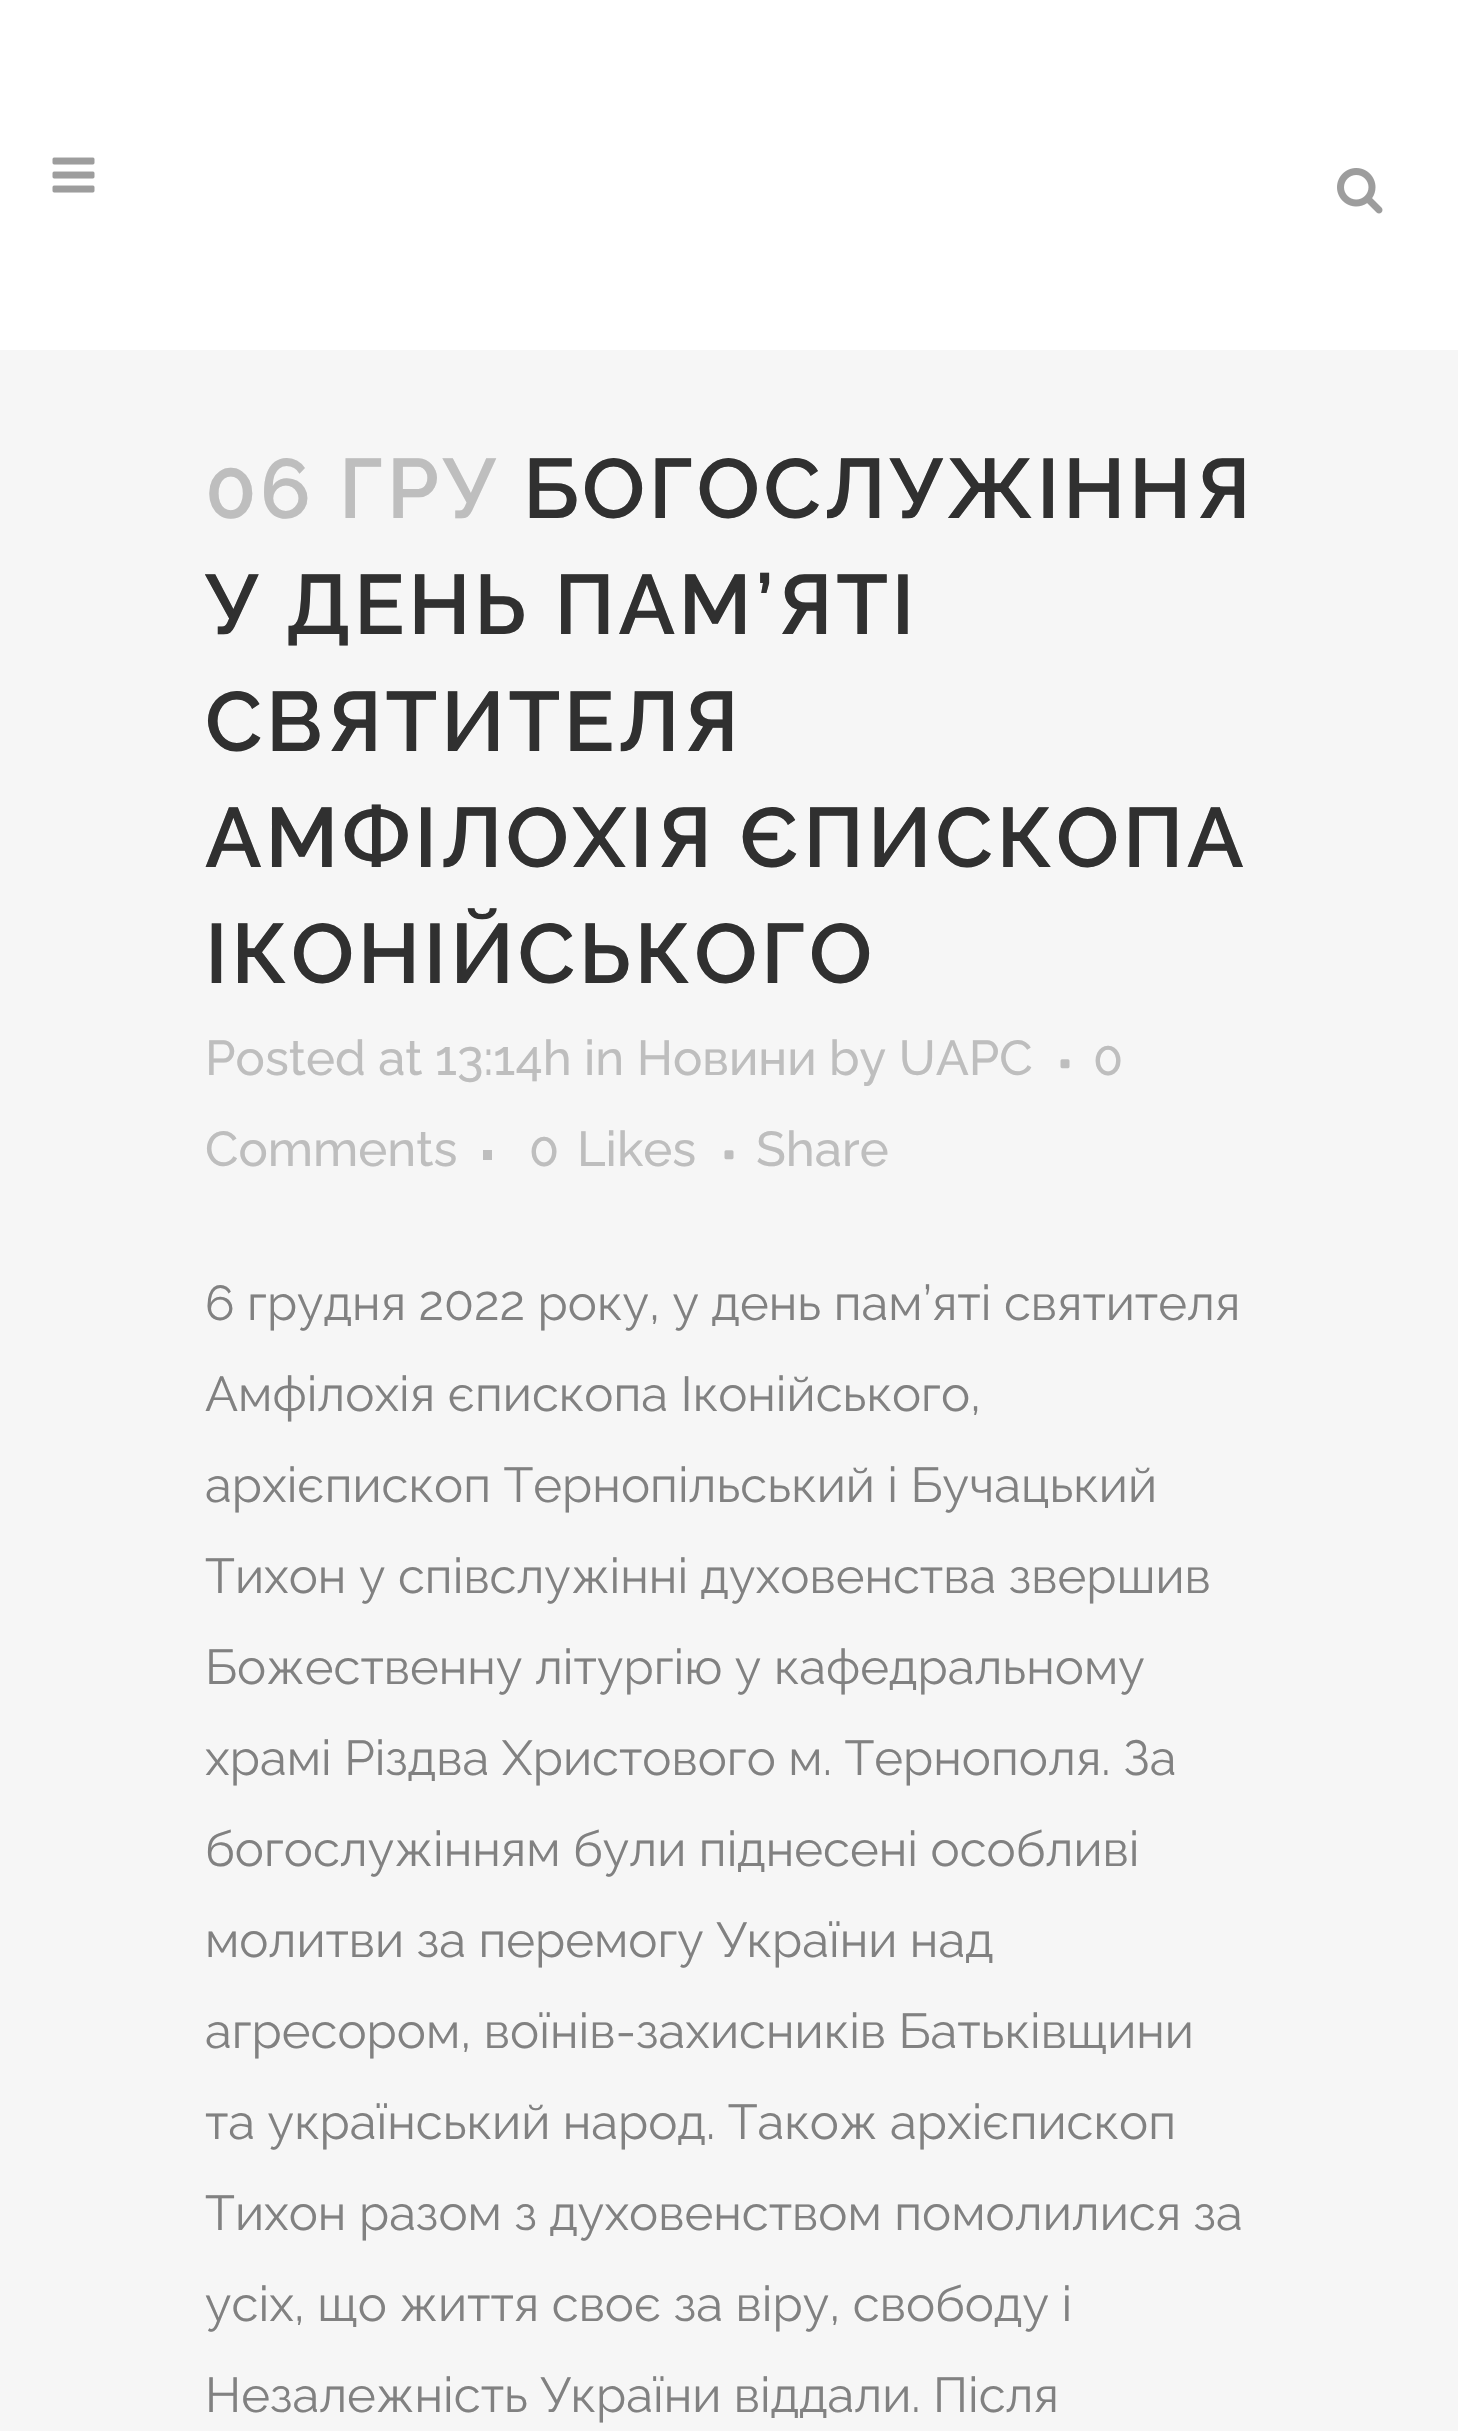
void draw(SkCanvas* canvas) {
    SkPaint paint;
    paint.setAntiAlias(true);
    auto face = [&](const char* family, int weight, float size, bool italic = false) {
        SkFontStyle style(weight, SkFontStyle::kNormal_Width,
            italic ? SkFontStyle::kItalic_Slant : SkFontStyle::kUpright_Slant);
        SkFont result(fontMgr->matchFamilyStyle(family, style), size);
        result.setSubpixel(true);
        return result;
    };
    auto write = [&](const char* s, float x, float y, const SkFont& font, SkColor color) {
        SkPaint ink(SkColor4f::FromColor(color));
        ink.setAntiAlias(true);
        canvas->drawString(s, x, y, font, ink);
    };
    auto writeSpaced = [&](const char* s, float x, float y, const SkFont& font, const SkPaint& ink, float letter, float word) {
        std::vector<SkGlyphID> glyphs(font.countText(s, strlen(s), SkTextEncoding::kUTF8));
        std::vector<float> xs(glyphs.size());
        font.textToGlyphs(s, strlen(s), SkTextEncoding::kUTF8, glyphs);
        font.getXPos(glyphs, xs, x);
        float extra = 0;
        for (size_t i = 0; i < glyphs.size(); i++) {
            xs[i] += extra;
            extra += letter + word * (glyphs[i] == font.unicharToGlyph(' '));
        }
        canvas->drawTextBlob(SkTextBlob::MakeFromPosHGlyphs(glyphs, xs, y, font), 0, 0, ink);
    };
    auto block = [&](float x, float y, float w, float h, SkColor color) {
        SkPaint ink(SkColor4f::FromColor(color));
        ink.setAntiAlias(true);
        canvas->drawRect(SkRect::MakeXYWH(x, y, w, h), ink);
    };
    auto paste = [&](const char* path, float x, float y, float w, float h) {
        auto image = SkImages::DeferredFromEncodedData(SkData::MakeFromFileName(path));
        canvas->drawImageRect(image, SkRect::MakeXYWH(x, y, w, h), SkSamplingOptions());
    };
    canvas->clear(SkColorSetRGB(246, 246, 246));
    block(0, 0, 1458, 350, SK_ColorWHITE);
    paste("pic1.png", 52, 157, 43, 36);
    paste("pic2.png", 1337, 168, 46, 46);
    auto kFont1 = face("Raleway", 600, 84);
    paint.setColor(SkColorSetRGB(190, 190, 190));
    writeSpaced("06 ГРУ", 205, 518, kFont1, paint, 3.5f, 0);
    paint.setColor(SkColorSetRGB(48, 48, 48));
    writeSpaced("БОГОСЛУЖІННЯ", 523, 518, kFont1, paint, 3.5f, 0);
    writeSpaced("У ДЕНЬ ПАМ’ЯТІ", 205, 634, kFont1, paint, 3.5f, 0);
    writeSpaced("СВЯТИТЕЛЯ", 205, 751, kFont1, paint, 3.5f, 0);
    writeSpaced("АМФІЛОХІЯ ЄПИСКОПА", 205, 867, kFont1, paint, 3.5f, 0);
    writeSpaced("ІКОНІЙСЬКОГО", 205, 983, kFont1, paint, 3.5f, 0);
    auto kFont2 = face("Raleway", 500, 49);
    write("Posted at 13:14h in Новини by UAPC", 205, 1075, kFont2, SkColorSetRGB(190, 190, 190));
    paste("pic3.png", 1060, 1059, 10, 10);
    write("0", 1093, 1075, kFont2, SkColorSetRGB(190, 190, 190));
    write("Comments", 205, 1166, kFont2, SkColorSetRGB(190, 190, 190));
    block(483, 1150, 9, 10, SkColorSetRGB(190, 190, 190));
    write("0", 529, 1166, kFont2, SkColorSetRGB(190, 190, 190));
    write("Likes", 577, 1166, kFont2, SkColorSetRGB(190, 190, 190));
    paste("pic3.png", 724, 1150, 10, 10);
    write("Share", 756, 1166, kFont2, SkColorSetRGB(190, 190, 190));
    auto kFont3 = face("Raleway", 400, 49);
    write("6 грудня 2022 року, у день пам’яті святителя", 205, 1320, kFont3, SkColorSetRGB(129, 129, 129));
    write("Амфілохія єпископа Іконійського,", 205, 1411, kFont3, SkColorSetRGB(129, 129, 129));
    write("архієпископ Тернопільський і Бучацький", 205, 1502, kFont3, SkColorSetRGB(129, 129, 129));
    write("Тихон у співслужінні духовенства звершив", 205, 1593, kFont3, SkColorSetRGB(129, 129, 129));
    write("Божественну літургію у кафедральному", 205, 1684, kFont3, SkColorSetRGB(129, 129, 129));
    write("храмі Різдва Христового м. Тернополя. За", 205, 1775, kFont3, SkColorSetRGB(129, 129, 129));
    write("богослужінням були піднесені особливі", 205, 1866, kFont3, SkColorSetRGB(129, 129, 129));
    write("молитви за перемогу України над", 205, 1957, kFont3, SkColorSetRGB(129, 129, 129));
    write("агресором, воїнів-захисників Батьківщини", 205, 2048, kFont3, SkColorSetRGB(129, 129, 129));
    write("та український народ. Також архієпископ", 205, 2139, kFont3, SkColorSetRGB(129, 129, 129));
    write("Тихон разом з духовенством помолилися за", 205, 2230, kFont3, SkColorSetRGB(129, 129, 129));
    write("усіх, що життя своє за віру, свободу і", 205, 2321, kFont3, SkColorSetRGB(129, 129, 129));
    write("Незалежність України віддали. Після", 205, 2412, kFont3, SkColorSetRGB(129, 129, 129));
}
